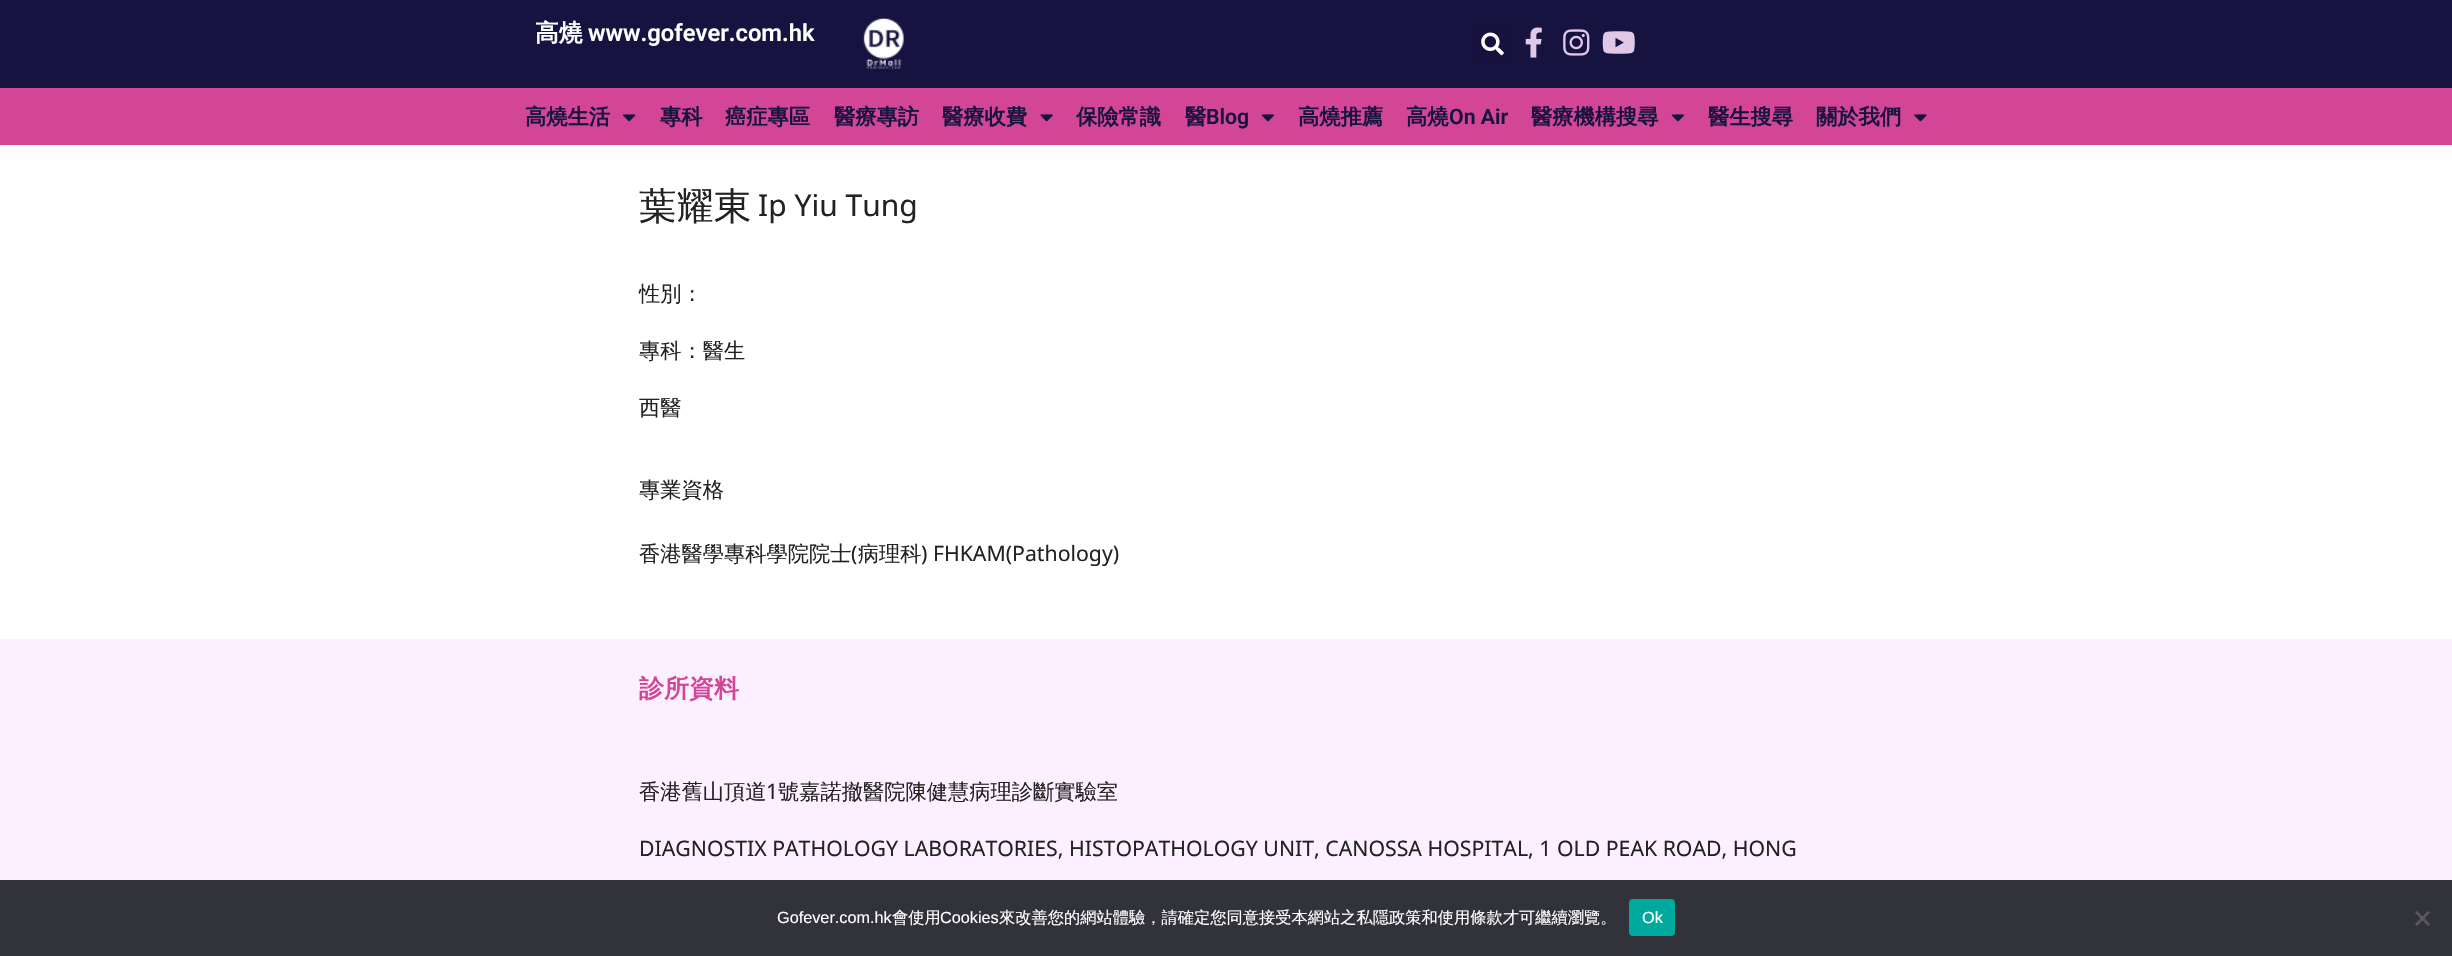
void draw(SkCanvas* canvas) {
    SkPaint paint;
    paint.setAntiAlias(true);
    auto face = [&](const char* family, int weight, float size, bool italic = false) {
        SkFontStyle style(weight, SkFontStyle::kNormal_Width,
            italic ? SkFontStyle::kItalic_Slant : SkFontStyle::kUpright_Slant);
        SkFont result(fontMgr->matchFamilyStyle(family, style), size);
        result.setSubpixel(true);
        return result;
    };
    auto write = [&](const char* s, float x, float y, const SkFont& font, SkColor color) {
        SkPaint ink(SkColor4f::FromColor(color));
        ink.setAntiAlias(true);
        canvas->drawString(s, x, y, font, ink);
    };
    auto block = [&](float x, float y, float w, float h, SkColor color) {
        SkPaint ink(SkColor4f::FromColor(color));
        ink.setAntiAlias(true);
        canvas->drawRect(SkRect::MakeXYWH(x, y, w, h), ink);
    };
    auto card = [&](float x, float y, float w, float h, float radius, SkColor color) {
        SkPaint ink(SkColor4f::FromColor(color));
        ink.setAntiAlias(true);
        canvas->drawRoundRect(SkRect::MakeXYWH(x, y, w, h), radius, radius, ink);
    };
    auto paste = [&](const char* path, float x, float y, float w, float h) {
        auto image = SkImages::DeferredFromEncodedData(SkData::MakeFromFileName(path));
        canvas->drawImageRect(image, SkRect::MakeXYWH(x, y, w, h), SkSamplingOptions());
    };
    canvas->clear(SkColorSetRGB(23, 19, 64));
    auto kFont1 = face("WenQuanYi Zen Hei", 700, 23.75f);
    write("高燒", 535, 41, kFont1, SK_ColorWHITE);
    auto kFont2 = face("Roboto", 600, 23.75f);
    write("www.gofever.com.hk", 588, 41, kFont2, SK_ColorWHITE);
    paste("pic1.png", 863, 17, 41, 52);
    card(1471, 24, 42, 41, 4, SkColorSetRGB(22, 18, 61));
    paste("pic2.png", 1481, 32, 23, 24);
    paste("pic3.png", 1525, 27, 17, 31);
    paste("pic4.png", 1563, 29, 27, 27);
    paste("pic5.png", 1602, 31, 33, 23);
    block(0, 88, 2452, 57, SkColorSetRGB(211, 69, 149));
    auto kFont3 = face("WenQuanYi Zen Hei", 700, 21.25f);
    write("高燒生活", 525, 124, kFont3, SkColorSetRGB(23, 19, 64));
    paste("pic6.png", 623, 114, 13, 8);
    write("專科", 660, 124, kFont3, SkColorSetRGB(23, 19, 64));
    write("癌症專區", 725, 124, kFont3, SkColorSetRGB(23, 19, 64));
    write("醫療專訪", 834, 124, kFont3, SkColorSetRGB(23, 19, 64));
    write("醫療收費", 942, 124, kFont3, SkColorSetRGB(23, 19, 64));
    paste("pic7.png", 1040, 114, 13, 8);
    write("保險常識", 1076, 124, kFont3, SkColorSetRGB(23, 19, 64));
    write("醫", 1185, 124, kFont3, SkColorSetRGB(23, 19, 64));
    auto kFont4 = face("Roboto", 600, 21.25f);
    write("Blog", 1206, 124, kFont4, SkColorSetRGB(23, 19, 64));
    paste("pic8.png", 1261, 114, 13, 8);
    write("高燒推薦", 1298, 124, kFont3, SkColorSetRGB(23, 19, 64));
    write("高燒", 1406, 124, kFont3, SkColorSetRGB(23, 19, 64));
    write("On Air", 1449, 124, kFont4, SkColorSetRGB(23, 19, 64));
    write("醫療機構搜尋", 1531, 124, kFont3, SkColorSetRGB(23, 19, 64));
    paste("pic8.png", 1671, 114, 13, 8);
    write("醫生搜尋", 1708, 124, kFont3, SkColorSetRGB(23, 19, 64));
    write("關於我們", 1816, 124, kFont3, SkColorSetRGB(23, 19, 64));
    paste("pic9.png", 1914, 114, 13, 8);
    block(0, 145, 2452, 494, SK_ColorWHITE);
    auto kFont5 = face("WenQuanYi Zen Hei", 500, 37.5f);
    write("葉耀東", 639, 219, kFont5, SkColorSetRGB(34, 34, 34));
    auto kFont6 = face("Noto Sans", 400, 30);
    write("Ip Yiu Tung", 758, 216, kFont6, SkColorSetRGB(34, 34, 34));
    auto kFont7 = face("WenQuanYi Zen Hei", 500, 21.25f);
    write("性別：", 639, 301, kFont7, SkColorSetRGB(34, 34, 34));
    write("專科：醫生", 639, 358, kFont7, SkColorSetRGB(34, 34, 34));
    write("西醫", 639, 415, kFont7, SkColorSetRGB(34, 34, 34));
    write("專業資格", 639, 497, kFont7, SkColorSetRGB(34, 34, 34));
    write("香港醫學專科學院院士 病理科", 639, 561, kFont7, SkColorSetRGB(34, 34, 34));
    auto kFont8 = face("Noto Sans", 400, 21.25f);
    write(") FHKAM(Pathology)", 921, 561, kFont8, SkColorSetRGB(34, 34, 34));
    write("(", 851, 561, kFont8, SkColorSetRGB(34, 34, 34));
    block(0, 639, 2452, 241, SkColorSetRGB(252, 239, 255));
    auto kFont9 = face("WenQuanYi Zen Hei", 700, 25);
    write("診所資料", 639, 697, kFont9, SkColorSetRGB(211, 69, 149));
    write("香港舊山頂道", 639, 799, kFont7, SkColorSetRGB(34, 34, 34));
    write("1", 766, 799, kFont8, SkColorSetRGB(34, 34, 34));
    write("號嘉諾撤醫院陳健慧病理診斷實驗室", 778, 799, kFont7, SkColorSetRGB(34, 34, 34));
    write("DIAGNOSTIX PATHOLOGY LABORATORIES, HISTOPATHOLOGY UNIT, CANOSSA HOSPITAL, 1 OLD PEAK ROAD, HONG", 639, 856, kFont8, SkColorSetRGB(34, 34, 34));
    block(0, 880, 2452, 76, SkColorSetRGB(50, 50, 58));
    auto kFont10 = face("Liberation Sans", 400, 16.25f);
    write("Gofever.com.hk", 777, 923, kFont10, SK_ColorWHITE);
    auto kFont11 = face("WenQuanYi Zen Hei", 500, 16.25f);
    write("會使用", 892, 923, kFont11, SK_ColorWHITE);
    write("Cookies", 940, 923, kFont10, SK_ColorWHITE);
    write("來改善您的網站體驗，請確定您同意接受本網站之私隱政策和使用條款才可繼續瀏覽。", 999, 923, kFont11, SK_ColorWHITE);
    card(1629, 899, 46, 37, 4, SkColorSetRGB(0, 169, 157));
    write("Ok", 1642, 923, kFont10, SK_ColorWHITE);
    paint.setColor(SkColorSetRGB(89, 89, 93));
    canvas->drawPath(SkPathBuilder().moveTo(2428, 911).lineTo(2430, 912.5f).lineTo(2417, 926).lineTo(2415, 924).close().detach(), paint);
    canvas->drawPath(SkPathBuilder().moveTo(2415, 912.5f).lineTo(2417, 911).lineTo(2430, 924).lineTo(2428, 926).close().detach(), paint);
}
